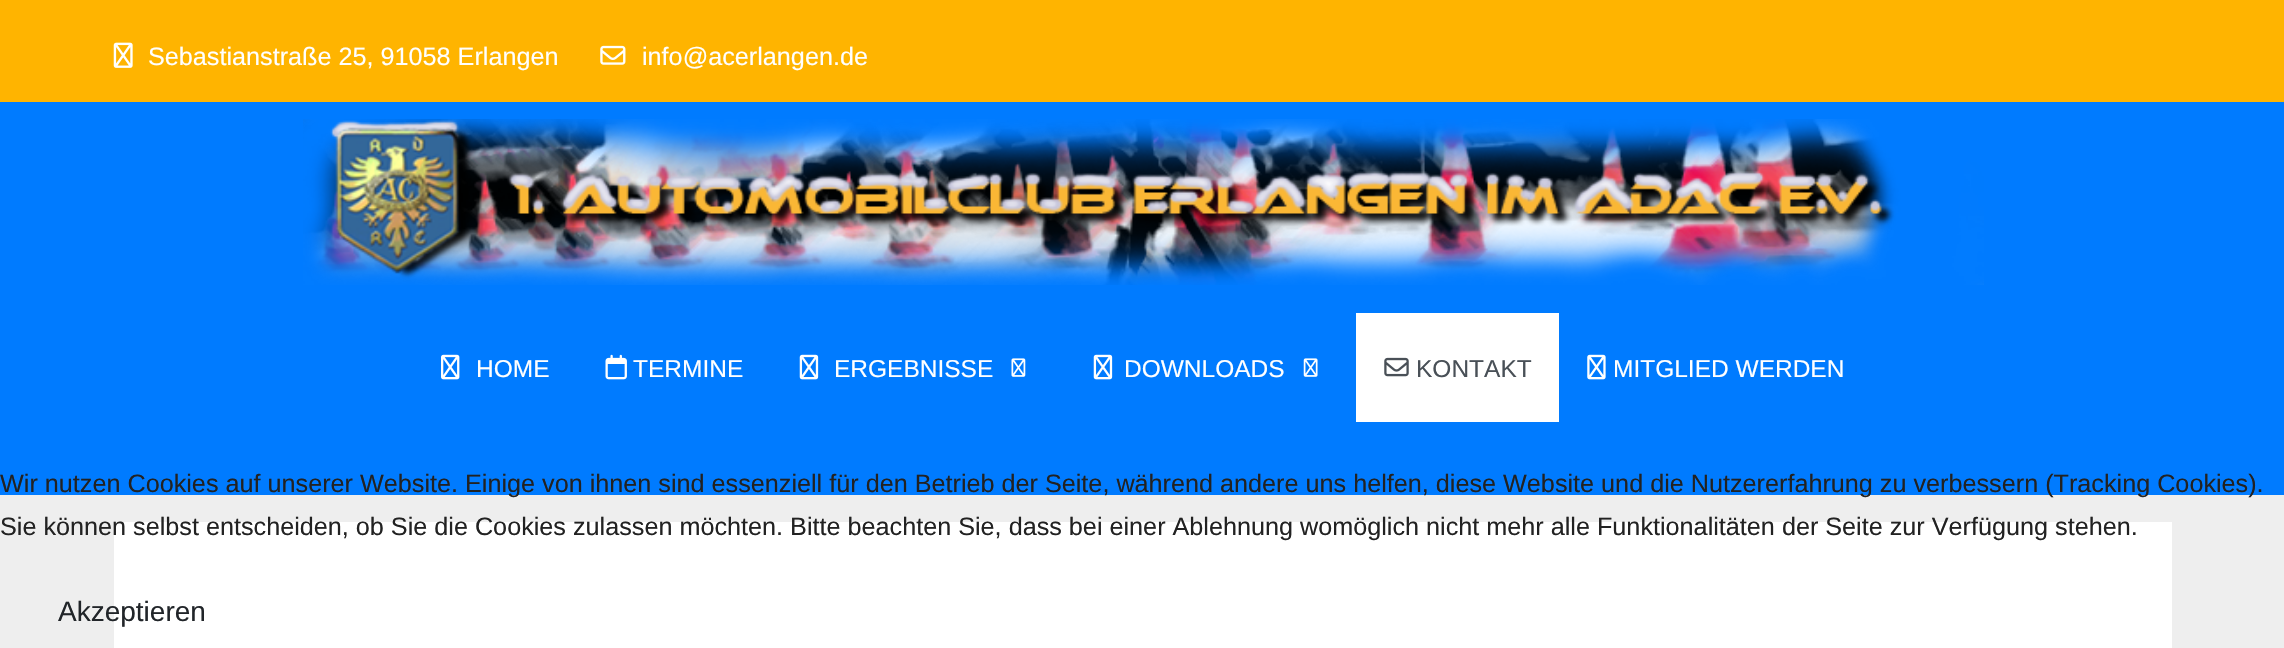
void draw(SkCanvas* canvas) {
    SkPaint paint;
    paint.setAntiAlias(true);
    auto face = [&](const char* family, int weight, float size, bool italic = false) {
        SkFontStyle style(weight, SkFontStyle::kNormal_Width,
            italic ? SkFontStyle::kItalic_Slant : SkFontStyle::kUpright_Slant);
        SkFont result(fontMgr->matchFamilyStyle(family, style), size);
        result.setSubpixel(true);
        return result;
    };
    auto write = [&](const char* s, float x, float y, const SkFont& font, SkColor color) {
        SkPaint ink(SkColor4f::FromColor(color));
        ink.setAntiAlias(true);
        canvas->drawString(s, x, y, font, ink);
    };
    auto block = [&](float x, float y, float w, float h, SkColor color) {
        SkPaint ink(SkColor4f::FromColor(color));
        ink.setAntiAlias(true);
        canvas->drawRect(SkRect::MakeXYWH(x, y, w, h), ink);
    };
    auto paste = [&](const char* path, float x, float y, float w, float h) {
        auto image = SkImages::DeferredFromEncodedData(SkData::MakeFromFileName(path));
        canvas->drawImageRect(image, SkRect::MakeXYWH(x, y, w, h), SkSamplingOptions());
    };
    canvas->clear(SkColorSetRGB(238, 238, 238));
    block(0, 0, 2284, 102, SkColorSetRGB(255, 180, 0));
    paste("pic1.png", 113, 42, 20, 26);
    auto kFont1 = face("Liberation Sans", 400, 25.2f);
    write("Sebastianstraße 25, 91058 Erlangen", 148, 65, kFont1, SK_ColorWHITE);
    paste("pic2.png", 600, 45, 26, 20);
    write("info@acerlangen.de", 642, 65, kFont1, SK_ColorWHITE);
    block(0, 102, 2284, 393, SkColorSetRGB(0, 123, 255));
    paste("pic3.png", 303, 119, 1681, 166);
    paste("pic4.png", 441, 354, 19, 26);
    auto kFont2 = face("Liberation Sans", 400, 24.5f);
    write("HOME", 476, 377, kFont2, SK_ColorWHITE);
    paste("pic5.png", 605, 354, 22, 26);
    write("TERMINE", 633, 377, kFont2, SK_ColorWHITE);
    paste("pic6.png", 799, 354, 20, 26);
    write("ERGEBNISSE", 834, 377, kFont2, SK_ColorWHITE);
    paste("pic7.png", 1011, 358, 15, 19);
    paste("pic6.png", 1093, 354, 20, 26);
    write("DOWNLOADS", 1124, 377, kFont2, SK_ColorWHITE);
    paste("pic8.png", 1303, 358, 15, 19);
    block(1356, 313, 203, 109, SK_ColorWHITE);
    paste("pic9.png", 1384, 357, 25, 20);
    write("KONTAKT", 1416, 377, kFont2, SkColorSetRGB(73, 80, 87));
    paste("pic10.png", 1587, 354, 19, 26);
    write("MITGLIED WERDEN", 1613, 377, kFont2, SK_ColorWHITE);
    block(114, 522, 2058, 126, SK_ColorWHITE);
    write("Wir nutzen Cookies auf unserer Website. Einige von ihnen sind essenziell für den Betrieb der Seite, während andere uns helfen, diese Website und die Nutzererfahrung zu verbessern (Tracking Cookies).", 0, 492, kFont1, SkColorSetRGB(34, 34, 34));
    write("Sie können selbst entscheiden, ob Sie die Cookies zulassen möchten. Bitte beachten Sie, dass bei einer Ablehnung womöglich nicht mehr alle Funktionalitäten der Seite zur Verfügung stehen.", 0, 535, kFont1, SkColorSetRGB(34, 34, 34));
    auto kFont3 = face("Liberation Sans", 400, 28);
    write("Akzeptieren", 58, 621, kFont3, SkColorSetRGB(33, 37, 41));
}
